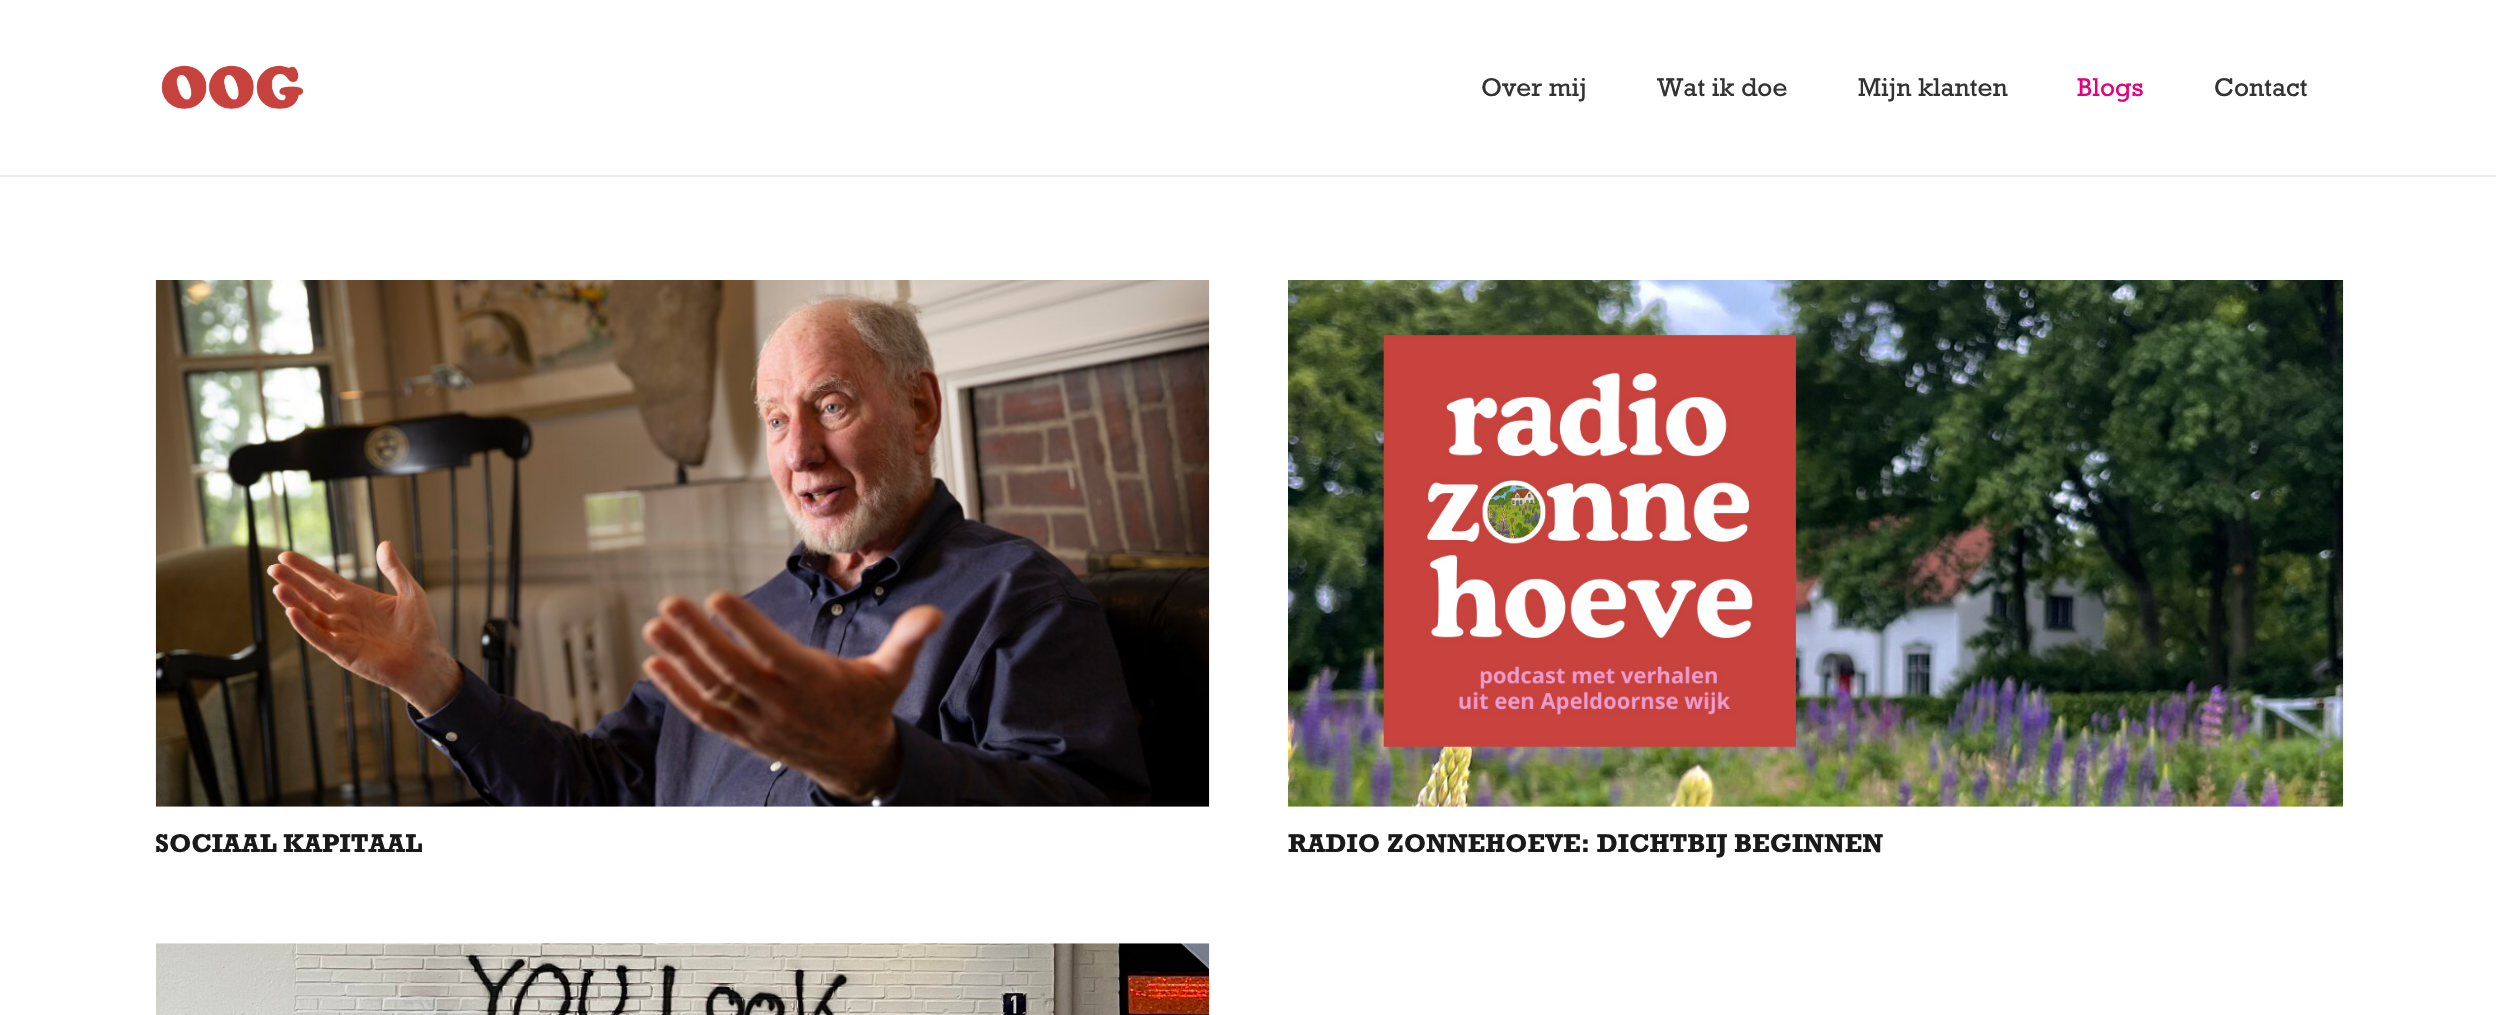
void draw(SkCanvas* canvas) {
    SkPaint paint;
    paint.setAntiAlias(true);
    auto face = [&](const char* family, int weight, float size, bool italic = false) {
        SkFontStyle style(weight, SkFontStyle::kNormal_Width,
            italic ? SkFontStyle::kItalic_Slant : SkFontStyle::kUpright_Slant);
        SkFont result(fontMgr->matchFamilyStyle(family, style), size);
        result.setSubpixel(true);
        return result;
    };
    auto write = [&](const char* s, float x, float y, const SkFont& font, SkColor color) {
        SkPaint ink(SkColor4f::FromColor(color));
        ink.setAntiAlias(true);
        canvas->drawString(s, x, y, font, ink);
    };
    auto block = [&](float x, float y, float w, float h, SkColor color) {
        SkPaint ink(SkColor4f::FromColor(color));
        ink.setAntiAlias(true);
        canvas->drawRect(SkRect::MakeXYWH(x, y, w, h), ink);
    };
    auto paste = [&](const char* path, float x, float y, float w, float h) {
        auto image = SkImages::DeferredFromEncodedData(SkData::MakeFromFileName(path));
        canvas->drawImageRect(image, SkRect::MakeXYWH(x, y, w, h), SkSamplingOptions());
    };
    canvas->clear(SK_ColorWHITE);
    block(0, 175, 2496, 2, SkColorSetRGB(235, 235, 235));
    paste("pic1.png", 161, 65, 143, 44);
    auto kFont1 = face("Rockwell", 400, 26.25f);
    write("Over mij", 1481, 96, kFont1, SkColorSetRGB(51, 51, 51));
    write("Wat ik doe", 1657, 96, kFont1, SkColorSetRGB(51, 51, 51));
    write("Mijn klanten", 1858, 96, kFont1, SkColorSetRGB(51, 51, 51));
    write("Blogs", 2077, 96, kFont1, SkColorSetRGB(230, 0, 126));
    write("Contact", 2214, 96, kFont1, SkColorSetRGB(51, 51, 51));
    paste("pic2.png", 155, 280, 1055, 527);
    auto kFont2 = face("Rockwell", 700, 26.25f);
    write("SOCIAAL KAPITAAL", 155, 852, kFont2, SkColorSetRGB(26, 26, 26));
    paste("pic3.png", 1288, 280, 1056, 527);
    write("RADIO ZONNEHOEVE: DICHTBIJ BEGINNEN", 1288, 852, kFont2, SkColorSetRGB(26, 26, 26));
    paste("pic4.png", 156, 943, 1054, 72);
}
